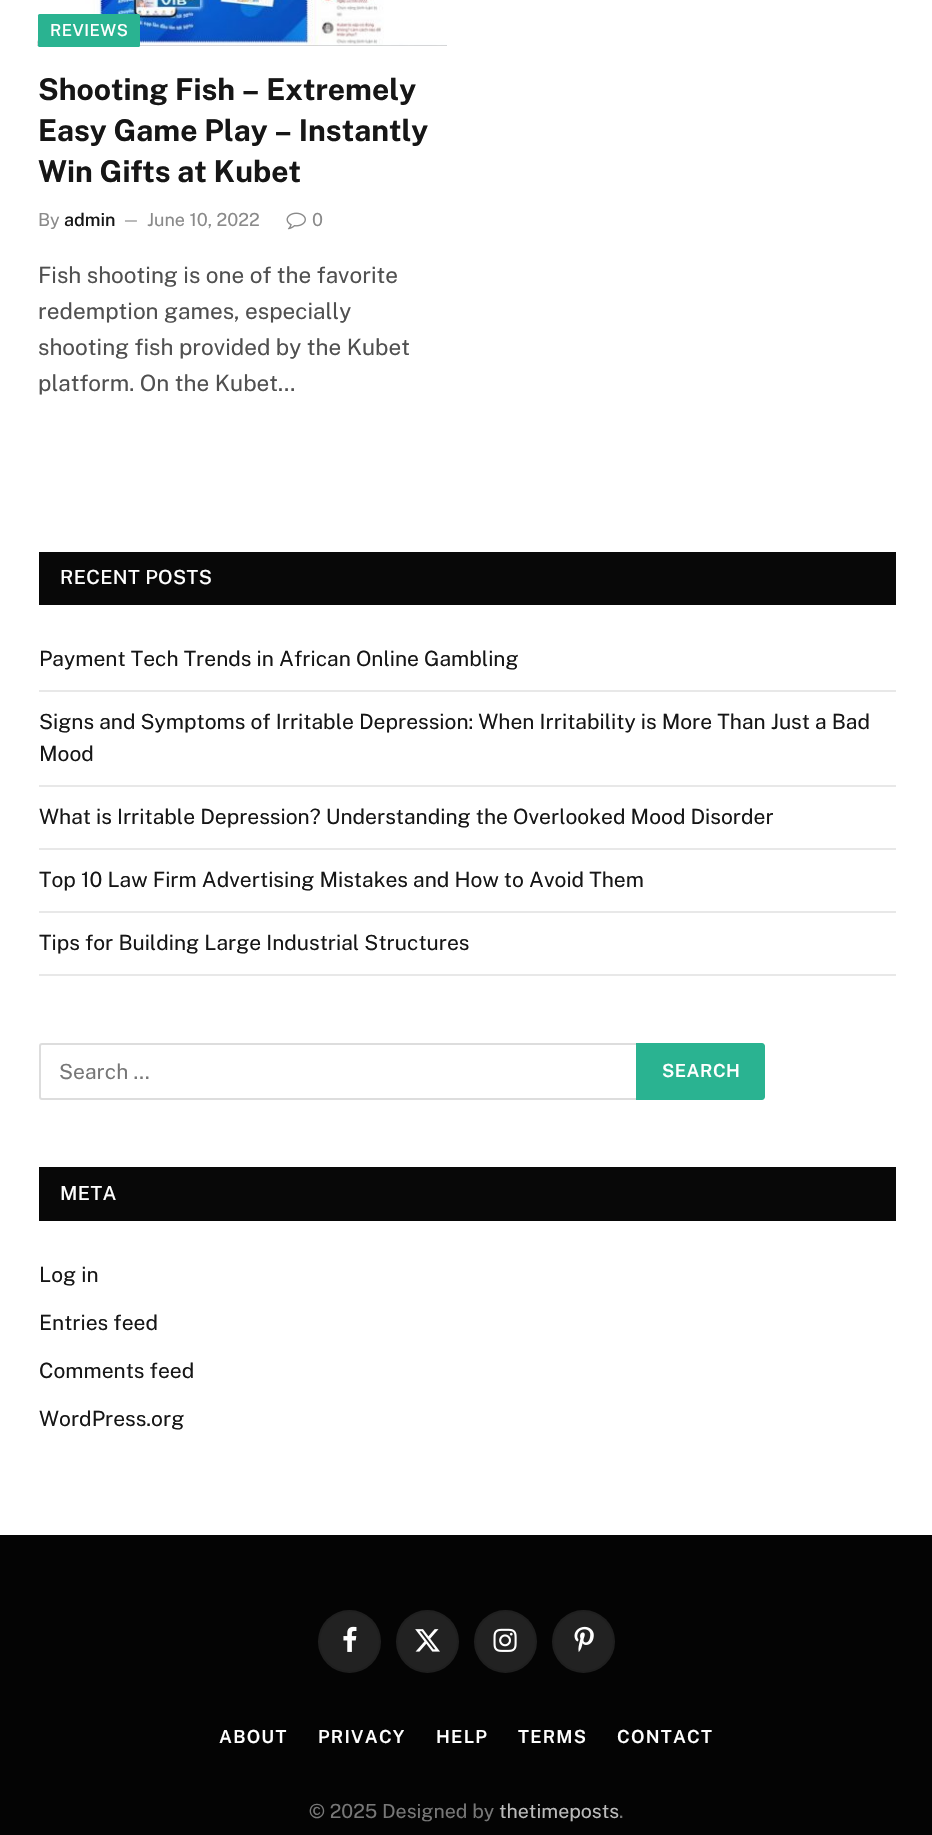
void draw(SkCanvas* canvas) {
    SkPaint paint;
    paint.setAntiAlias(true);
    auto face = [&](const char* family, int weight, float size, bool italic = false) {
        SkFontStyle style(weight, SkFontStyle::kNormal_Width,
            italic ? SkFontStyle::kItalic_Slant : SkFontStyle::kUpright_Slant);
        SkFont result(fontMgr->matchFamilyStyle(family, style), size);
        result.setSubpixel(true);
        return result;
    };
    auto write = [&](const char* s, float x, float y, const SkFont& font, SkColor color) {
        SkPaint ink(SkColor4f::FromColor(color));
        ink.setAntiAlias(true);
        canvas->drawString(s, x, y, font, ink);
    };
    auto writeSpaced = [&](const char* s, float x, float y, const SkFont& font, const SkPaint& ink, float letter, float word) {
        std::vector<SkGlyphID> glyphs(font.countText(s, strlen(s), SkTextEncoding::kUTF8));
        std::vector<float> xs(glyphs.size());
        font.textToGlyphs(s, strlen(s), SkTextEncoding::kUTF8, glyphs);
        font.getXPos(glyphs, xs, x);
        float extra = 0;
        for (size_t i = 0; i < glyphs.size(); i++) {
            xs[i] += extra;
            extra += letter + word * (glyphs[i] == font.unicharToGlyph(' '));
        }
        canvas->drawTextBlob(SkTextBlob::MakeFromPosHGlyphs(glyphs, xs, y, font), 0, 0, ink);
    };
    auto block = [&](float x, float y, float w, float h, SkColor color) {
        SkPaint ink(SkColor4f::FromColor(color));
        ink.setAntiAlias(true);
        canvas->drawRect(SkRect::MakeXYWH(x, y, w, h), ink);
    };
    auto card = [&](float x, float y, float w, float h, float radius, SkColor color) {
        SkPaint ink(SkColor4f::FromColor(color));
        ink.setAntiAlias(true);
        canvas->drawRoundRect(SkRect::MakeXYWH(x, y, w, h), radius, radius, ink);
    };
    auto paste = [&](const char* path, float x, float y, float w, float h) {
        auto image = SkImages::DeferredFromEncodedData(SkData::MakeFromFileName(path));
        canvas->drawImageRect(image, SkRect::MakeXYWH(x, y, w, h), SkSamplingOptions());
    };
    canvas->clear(SK_ColorWHITE);
    paste("pic1.png", 37, 0, 410, 46);
    card(38, 14, 102, 33, 1.5f, SkColorSetRGB(42, 179, 145));
    auto kFont1 = face("Public Sans", 500, 16.5f);
    paint.setColor(SK_ColorWHITE);
    writeSpaced("REVIEWS", 50, 36, kFont1, paint, 0.5f, 0);
    auto kFont2 = face("Public Sans", 700, 30);
    write("Shooting Fish – Extremely", 38, 100, kFont2, SkColorSetRGB(22, 22, 22));
    write("Easy Game Play – Instantly", 38, 141, kFont2, SkColorSetRGB(22, 22, 22));
    write("Win Gifts at Kubet", 38, 182, kFont2, SkColorSetRGB(22, 22, 22));
    auto kFont3 = face("Public Sans", 400, 18);
    write("By", 38, 226, kFont3, SkColorSetRGB(138, 138, 138));
    auto kFont4 = face("Public Sans", 500, 18);
    write("admin", 64, 226, kFont4, SkColorSetRGB(22, 22, 22));
    auto kFont5 = face("Public Sans", 400, 16);
    write("—", 122, 225, kFont5, SkColorSetRGB(138, 138, 138));
    write("June 10, 2022", 147, 226, kFont3, SkColorSetRGB(138, 138, 138));
    paste("pic2.png", 286, 212, 20, 18);
    write("0", 312, 226, kFont3, SkColorSetRGB(138, 138, 138));
    auto kFont6 = face("Public Sans", 400, 22.5f);
    write("Fish shooting is one of the favorite", 38, 283, kFont6, SkColorSetRGB(80, 80, 80));
    write("redemption games, especially", 38, 319, kFont6, SkColorSetRGB(80, 80, 80));
    write("shooting fish provided by the Kubet", 38, 355, kFont6, SkColorSetRGB(80, 80, 80));
    write("platform. On the Kubet…", 38, 391, kFont6, SkColorSetRGB(80, 80, 80));
    block(39, 552, 857, 53, SkColorSetRGB(8, 8, 8));
    auto kFont7 = face("Public Sans", 500, 19.5f);
    writeSpaced("RECENT POSTS", 60, 584, kFont7, paint, 0.4f, 0);
    block(39, 690, 857, 2, SkColorSetRGB(232, 232, 232));
    auto kFont8 = face("Public Sans", 400, 21);
    write("Payment Tech Trends in African Online Gambling", 39, 666, kFont8, SkColorSetRGB(22, 22, 22));
    block(39, 785, 857, 2, SkColorSetRGB(232, 232, 232));
    write("Signs and Symptoms of Irritable Depression: When Irritability is More Than Just a Bad", 39, 729, kFont8, SkColorSetRGB(22, 22, 22));
    write("Mood", 39, 761, kFont8, SkColorSetRGB(22, 22, 22));
    block(39, 848, 857, 2, SkColorSetRGB(232, 232, 232));
    write("What is Irritable Depression? Understanding the Overlooked Mood Disorder", 39, 824, kFont8, SkColorSetRGB(22, 22, 22));
    block(39, 911, 857, 2, SkColorSetRGB(232, 232, 232));
    write("Top 10 Law Firm Advertising Mistakes and How to Avoid Them", 39, 887, kFont8, SkColorSetRGB(22, 22, 22));
    block(39, 974, 857, 2, SkColorSetRGB(232, 232, 232));
    write("Tips for Building Large Industrial Structures", 39, 950, kFont8, SkColorSetRGB(22, 22, 22));
    paint.setStyle(SkPaint::kStroke_Style);
    paint.setStrokeWidth(2);
    paint.setColor(SkColorSetRGB(221, 221, 221));
    canvas->drawRoundRect(SkRect::MakeXYWH(40, 1044, 598, 55), 2, 2, paint);
    write("Search …", 59, 1079, kFont8, SkColorSetRGB(119, 119, 119));
    paint.setStyle(SkPaint::kFill_Style);
    paint.setColor(SkColorSetRGB(42, 179, 145));
    canvas->drawPath(SkPathBuilder().moveTo(636, 1043).lineTo(762, 1043).cubicTo(763.5f, 1043, 765, 1044.5f, 765, 1046).lineTo(765, 1097).cubicTo(765, 1098.5f, 763.5f, 1100, 762, 1100).lineTo(636, 1100).close().detach(), paint);
    auto kFont9 = face("Public Sans", 600, 18);
    paint.setColor(SK_ColorWHITE);
    writeSpaced("SEARCH", 662, 1077, kFont9, paint, 0.5f, 0);
    block(39, 1167, 857, 54, SkColorSetRGB(8, 8, 8));
    writeSpaced("META", 60, 1200, kFont7, paint, 0.4f, 0);
    write("Log in", 39, 1282, kFont8, SkColorSetRGB(22, 22, 22));
    write("Entries feed", 39, 1330, kFont8, SkColorSetRGB(22, 22, 22));
    write("Comments feed", 39, 1378, kFont8, SkColorSetRGB(22, 22, 22));
    write("WordPress.org", 39, 1426, kFont8, SkColorSetRGB(22, 22, 22));
    block(0, 1535, 932, 300, SkColorSetRGB(4, 4, 4));
    paint.setColor(SkColorSetRGB(34, 34, 34));
    canvas->drawCircle(349.5f, 1641.5f, 31.5f, paint);
    paint.setStyle(SkPaint::kStroke_Style);
    paint.setColor(SkColorSetARGB(23, 0, 0, 0));
    canvas->drawCircle(349.5f, 1641.5f, 30.5f, paint);
    paste("pic3.png", 343, 1626, 14, 26);
    paint.setStyle(SkPaint::kFill_Style);
    paint.setColor(SkColorSetRGB(34, 34, 34));
    canvas->drawCircle(427.5f, 1641.5f, 31.5f, paint);
    paint.setStyle(SkPaint::kStroke_Style);
    paint.setColor(SkColorSetARGB(23, 0, 0, 0));
    canvas->drawCircle(427.5f, 1641.5f, 30.5f, paint);
    paste("pic4.png", 415, 1629, 25, 23);
    paint.setStyle(SkPaint::kFill_Style);
    paint.setColor(SkColorSetRGB(34, 34, 34));
    canvas->drawCircle(505.5f, 1641.5f, 31.5f, paint);
    paint.setStyle(SkPaint::kStroke_Style);
    paint.setColor(SkColorSetARGB(23, 0, 0, 0));
    canvas->drawCircle(505.5f, 1641.5f, 30.5f, paint);
    paste("pic5.png", 493, 1628, 24, 24);
    paint.setStyle(SkPaint::kFill_Style);
    paint.setColor(SkColorSetRGB(34, 34, 34));
    canvas->drawCircle(583.5f, 1641.5f, 31.5f, paint);
    paint.setStyle(SkPaint::kStroke_Style);
    paint.setColor(SkColorSetARGB(23, 0, 0, 0));
    canvas->drawCircle(583.5f, 1641.5f, 30.5f, paint);
    paste("pic6.png", 574, 1626, 20, 26);
    paint.setStyle(SkPaint::kFill_Style);
    paint.setColor(SK_ColorWHITE);
    writeSpaced("ABOUT", 219, 1743, kFont9, paint, 1.25f, 0);
    writeSpaced("PRIVACY", 318, 1743, kFont9, paint, 1.25f, 0);
    writeSpaced("HELP", 436, 1743, kFont9, paint, 1.25f, 0);
    writeSpaced("TERMS", 518, 1743, kFont9, paint, 1.25f, 0);
    writeSpaced("CONTACT", 617, 1743, kFont9, paint, 1.25f, 0);
    auto kFont10 = face("Public Sans", 400, 19.5f);
    write("© 2025 Designed by", 309, 1818, kFont10, SkColorSetRGB(119, 119, 119));
    write("thetimeposts", 499, 1818, kFont10, SkColorSetRGB(187, 187, 187));
    write(".", 619, 1818, kFont10, SkColorSetRGB(119, 119, 119));
}
